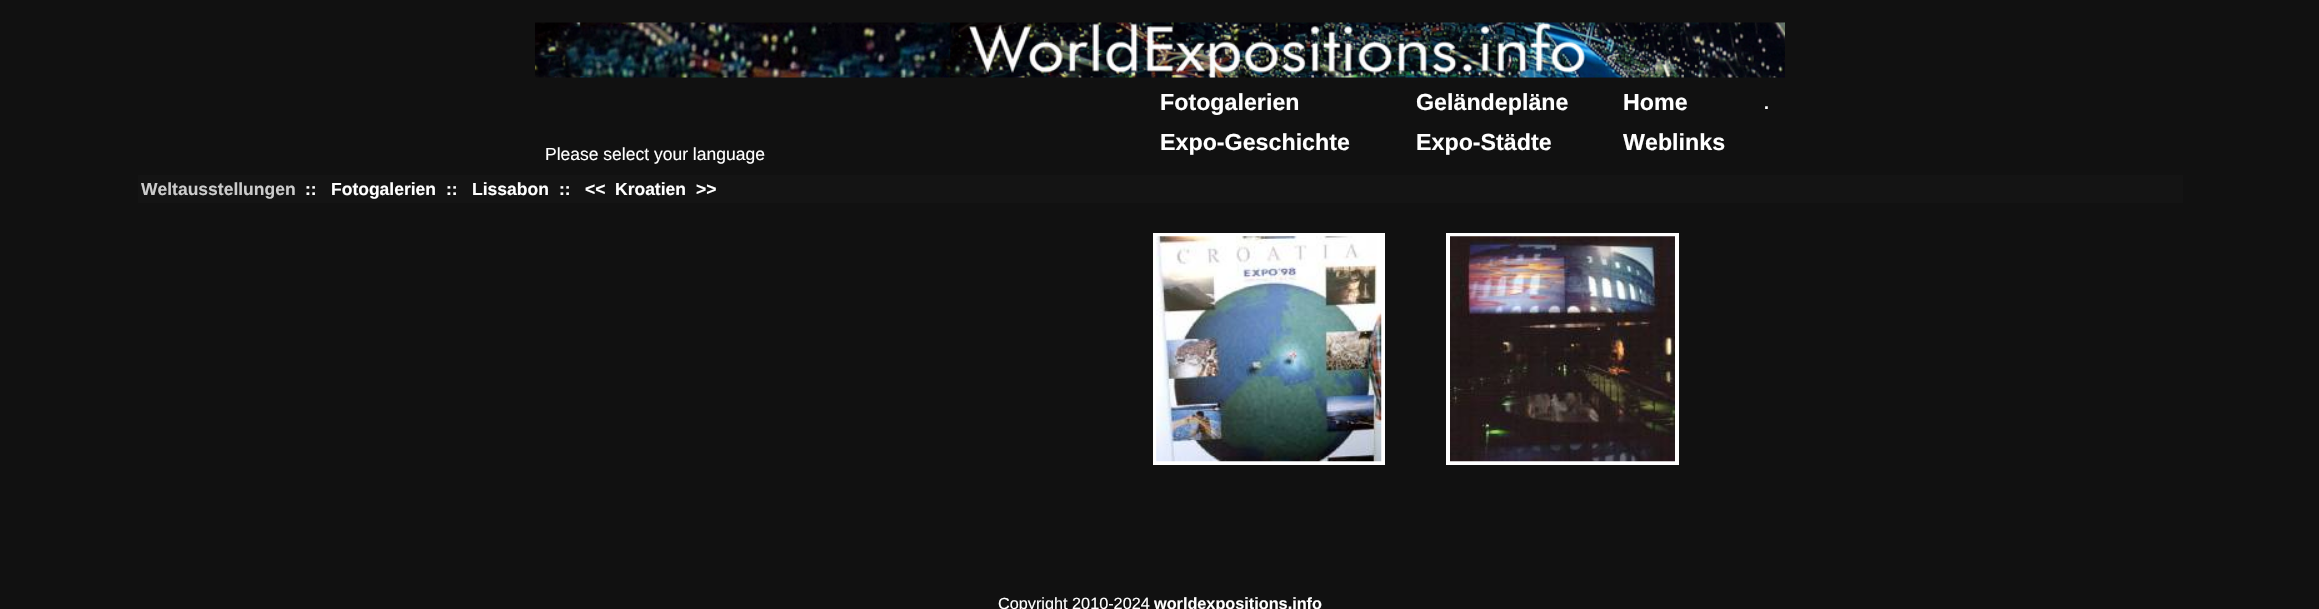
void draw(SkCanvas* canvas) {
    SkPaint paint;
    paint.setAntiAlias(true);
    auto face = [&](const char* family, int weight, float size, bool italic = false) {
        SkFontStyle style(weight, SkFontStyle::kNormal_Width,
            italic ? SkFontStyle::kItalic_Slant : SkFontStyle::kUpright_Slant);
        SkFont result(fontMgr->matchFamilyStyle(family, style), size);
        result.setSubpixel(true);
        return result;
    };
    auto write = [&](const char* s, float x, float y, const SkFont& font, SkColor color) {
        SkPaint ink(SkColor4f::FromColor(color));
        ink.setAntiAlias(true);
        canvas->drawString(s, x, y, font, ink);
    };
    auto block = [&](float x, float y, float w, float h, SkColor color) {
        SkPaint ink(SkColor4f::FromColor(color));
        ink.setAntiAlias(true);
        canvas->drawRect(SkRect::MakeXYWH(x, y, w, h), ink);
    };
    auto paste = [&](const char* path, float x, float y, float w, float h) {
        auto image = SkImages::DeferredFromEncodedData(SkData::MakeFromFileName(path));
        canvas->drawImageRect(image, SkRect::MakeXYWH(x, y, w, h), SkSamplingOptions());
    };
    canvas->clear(SkColorSetRGB(17, 17, 17));
    paste("pic1.png", 535, 22, 1250, 56);
    auto kFont1 = face("Liberation Sans", 400, 17.5f);
    write("Please select your language", 545, 160, kFont1, SK_ColorWHITE);
    auto kFont2 = face("Liberation Sans", 700, 23.25f);
    write("Fotogalerien", 1160, 110, kFont2, SK_ColorWHITE);
    write("Geländepläne", 1416, 110, kFont2, SK_ColorWHITE);
    write("Home", 1623, 110, kFont2, SK_ColorWHITE);
    auto kFont3 = face("Liberation Sans", 700, 17.5f);
    write(".", 1764, 109, kFont3, SK_ColorWHITE);
    write("Expo-Geschichte", 1160, 150, kFont2, SK_ColorWHITE);
    write("Expo-Städte", 1416, 150, kFont2, SK_ColorWHITE);
    write("Weblinks", 1623, 150, kFont2, SK_ColorWHITE);
    block(138, 175, 2045, 28, SkColorSetRGB(20, 20, 20));
    write("Weltausstellungen", 141, 195, kFont3, SkColorSetRGB(204, 204, 204));
    write("::", 305, 195, kFont3, SK_ColorWHITE);
    write("Fotogalerien", 331, 195, kFont3, SK_ColorWHITE);
    write("::", 446, 195, kFont3, SK_ColorWHITE);
    write("Lissabon", 472, 195, kFont3, SK_ColorWHITE);
    write("::", 559, 195, kFont3, SK_ColorWHITE);
    write("<<", 585, 195, kFont3, SK_ColorWHITE);
    write("Kroatien", 615, 195, kFont3, SK_ColorWHITE);
    write(">>", 696, 195, kFont3, SK_ColorWHITE);
    paint.setStyle(SkPaint::kStroke_Style);
    paint.setStrokeWidth(4);
    paint.setColor(SK_ColorWHITE);
    canvas->drawRect(SkRect::MakeXYWH(1155, 235, 228, 228), paint);
    paste("pic2.png", 1156, 236, 226, 226);
    canvas->drawRect(SkRect::MakeXYWH(1448, 235, 229, 228), paint);
    paste("pic3.png", 1450, 236, 225, 226);
    auto kFont4 = face("Liberation Sans", 400, 16.25f);
    write("Copyright 2010-2024", 998, 609, kFont4, SK_ColorWHITE);
    auto kFont5 = face("Liberation Sans", 700, 16.25f);
    write("worldexpositions.info", 1154, 609, kFont5, SK_ColorWHITE);
}
